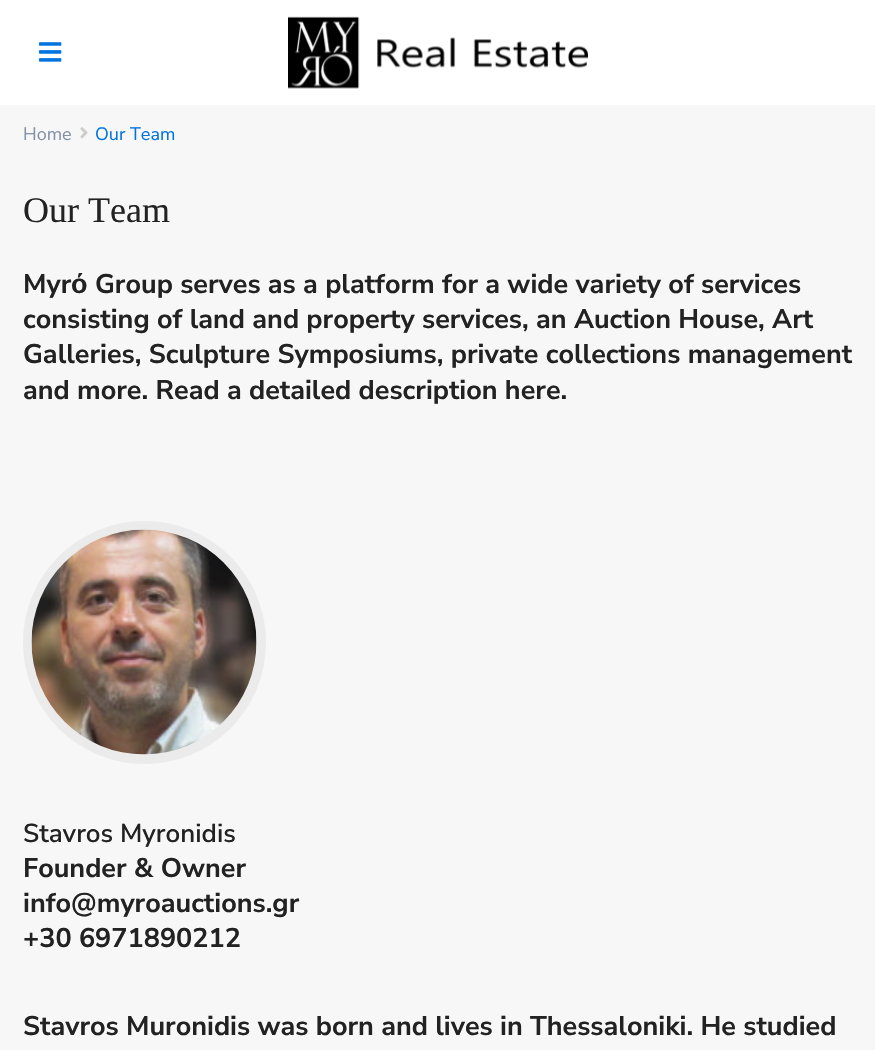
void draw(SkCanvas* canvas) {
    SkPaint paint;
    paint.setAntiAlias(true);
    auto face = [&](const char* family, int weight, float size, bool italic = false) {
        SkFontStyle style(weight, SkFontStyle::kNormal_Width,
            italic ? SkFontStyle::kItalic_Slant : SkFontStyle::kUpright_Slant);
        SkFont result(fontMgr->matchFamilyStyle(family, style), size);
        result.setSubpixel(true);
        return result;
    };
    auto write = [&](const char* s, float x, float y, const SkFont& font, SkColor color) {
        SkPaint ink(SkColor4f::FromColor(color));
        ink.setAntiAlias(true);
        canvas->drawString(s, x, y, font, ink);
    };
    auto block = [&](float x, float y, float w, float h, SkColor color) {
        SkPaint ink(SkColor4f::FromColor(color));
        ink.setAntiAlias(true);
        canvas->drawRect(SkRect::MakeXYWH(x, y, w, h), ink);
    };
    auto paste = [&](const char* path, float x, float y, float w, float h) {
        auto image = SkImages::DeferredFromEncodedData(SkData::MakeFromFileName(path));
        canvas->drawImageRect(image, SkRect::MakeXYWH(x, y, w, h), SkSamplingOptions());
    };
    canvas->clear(SkColorSetRGB(247, 247, 247));
    block(0, 0, 875, 105, SK_ColorWHITE);
    paste("pic1.png", 39, 42, 23, 20);
    paste("pic2.png", 288, 16, 300, 73);
    auto kFont1 = face("Nunito Sans", 400, 18);
    write("Home", 23, 140, kFont1, SkColorSetRGB(133, 147, 169));
    paste("pic3.png", 80, 127, 8, 12);
    write("Our Team", 95, 140, kFont1, SkColorSetRGB(0, 115, 225));
    auto kFont2 = face("Liberation Serif", 400, 36);
    write("Our Team", 23, 222, kFont2, SkColorSetRGB(34, 34, 34));
    auto kFont3 = face("Nunito Sans", 700, 27);
    write("Myr", 23, 293, kFont3, SkColorSetRGB(34, 34, 34));
    auto kFont4 = face("Liberation Sans", 700, 27);
    write("ό", 71, 293, kFont4, SkColorSetRGB(34, 34, 34));
    write("Group serves as a platform for a wide variety of services", 95, 293, kFont3, SkColorSetRGB(34, 34, 34));
    write("consisting of land and property services, an Auction House, Art", 23, 328, kFont3, SkColorSetRGB(34, 34, 34));
    write("Galleries, Sculpture Symposiums, private collections management", 23, 363, kFont3, SkColorSetRGB(34, 34, 34));
    write("and more. Read a detailed description here.", 23, 399, kFont3, SkColorSetRGB(34, 34, 34));
    paint.setColor(SkColorSetRGB(235, 235, 235));
    canvas->drawCircle(144.5f, 642.5f, 121.5f, paint);
    paste("pic4.png", 31, 529, 226, 226);
    auto kFont5 = face("Nunito Sans", 600, 26);
    write("Stavros Myronidis", 23, 842, kFont5, SkColorSetRGB(34, 34, 34));
    write("Founder & Owner", 23, 877, kFont3, SkColorSetRGB(34, 34, 34));
    write("info@myroauctions.gr", 23, 912, kFont3, SkColorSetRGB(34, 34, 34));
    write("+30 6971890212", 23, 947, kFont3, SkColorSetRGB(34, 34, 34));
    write("Stavros Muronidis was born and lives in Thessaloniki. He studied", 23, 1035, kFont3, SkColorSetRGB(34, 34, 34));
}
